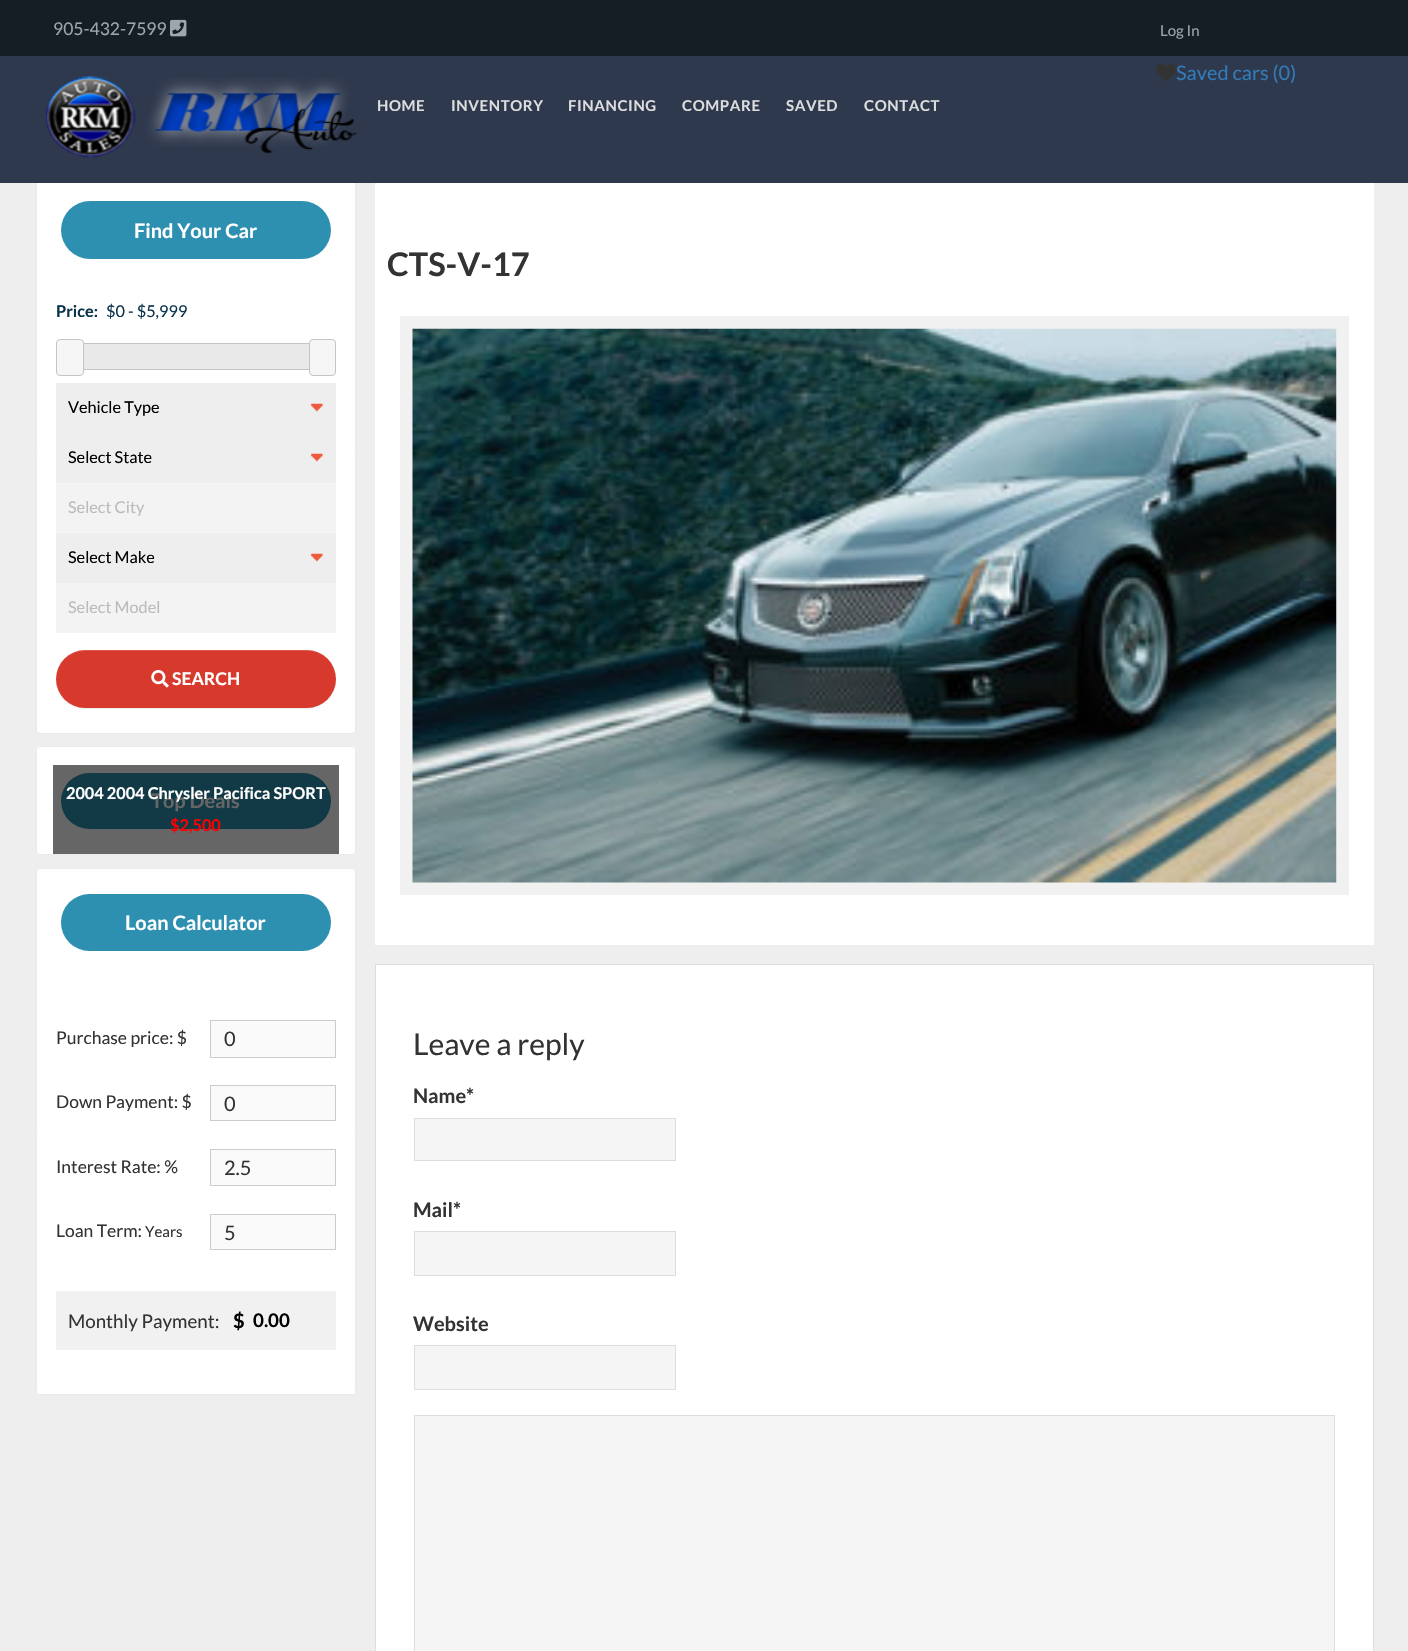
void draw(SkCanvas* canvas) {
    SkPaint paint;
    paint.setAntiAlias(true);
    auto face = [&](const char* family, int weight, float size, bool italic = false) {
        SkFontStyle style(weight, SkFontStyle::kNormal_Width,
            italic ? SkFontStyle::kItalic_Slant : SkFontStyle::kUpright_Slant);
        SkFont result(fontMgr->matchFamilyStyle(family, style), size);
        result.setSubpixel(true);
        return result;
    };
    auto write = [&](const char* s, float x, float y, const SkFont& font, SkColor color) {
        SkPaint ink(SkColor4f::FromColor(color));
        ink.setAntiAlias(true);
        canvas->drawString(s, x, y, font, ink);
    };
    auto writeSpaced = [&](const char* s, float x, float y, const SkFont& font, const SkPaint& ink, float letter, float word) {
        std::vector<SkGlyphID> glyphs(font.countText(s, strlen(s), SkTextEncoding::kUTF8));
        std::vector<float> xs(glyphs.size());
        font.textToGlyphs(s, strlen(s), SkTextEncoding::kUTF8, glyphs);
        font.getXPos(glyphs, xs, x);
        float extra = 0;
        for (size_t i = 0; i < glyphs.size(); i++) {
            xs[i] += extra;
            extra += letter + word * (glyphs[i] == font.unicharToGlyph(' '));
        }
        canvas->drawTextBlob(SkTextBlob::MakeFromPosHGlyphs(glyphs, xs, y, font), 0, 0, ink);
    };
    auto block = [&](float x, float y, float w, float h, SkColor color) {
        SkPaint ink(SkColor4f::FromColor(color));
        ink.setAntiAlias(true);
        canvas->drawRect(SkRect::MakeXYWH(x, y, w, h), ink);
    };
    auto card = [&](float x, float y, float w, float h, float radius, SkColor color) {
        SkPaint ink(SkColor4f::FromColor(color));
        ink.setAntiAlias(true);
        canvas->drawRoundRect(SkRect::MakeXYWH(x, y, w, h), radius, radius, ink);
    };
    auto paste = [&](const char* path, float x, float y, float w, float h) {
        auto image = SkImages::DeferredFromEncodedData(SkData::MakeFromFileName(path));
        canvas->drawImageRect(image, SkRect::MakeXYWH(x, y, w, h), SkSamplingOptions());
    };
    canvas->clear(SkColorSetRGB(238, 238, 238));
    block(0, 0, 1408, 56, SkColorSetRGB(21, 30, 37));
    auto kFont1 = face("Lato", 400, 17.5f);
    write("905-432-7599", 53, 35, kFont1, SkColorSetRGB(158, 166, 172));
    paste("pic1.png", 170, 19, 17, 18);
    auto kFont2 = face("Lato", 400, 15);
    write("Log In", 1160, 36, kFont2, SkColorSetRGB(158, 166, 172));
    paint.setColor(SK_ColorWHITE);
    canvas->drawRoundRect(SkRect::MakeXYWH(36.5f, 175.5f, 319, 558), 3.5f, 3.5f, paint);
    paint.setStyle(SkPaint::kStroke_Style);
    paint.setStrokeWidth(1);
    paint.setColor(SkColorSetRGB(234, 234, 234));
    canvas->drawRoundRect(SkRect::MakeXYWH(36.5f, 175.5f, 319, 558), 3.5f, 3.5f, paint);
    block(0, 56, 1408, 127, SkColorSetRGB(47, 57, 77));
    auto kFont3 = face("Lato", 400, 20);
    write("Saved cars (0)", 1176, 80, kFont3, SkColorSetRGB(51, 122, 183));
    paste("pic2.png", 1156, 63, 21, 19);
    paste("pic3.png", 45, 76, 312, 82);
    auto kFont4 = face("Lato", 700, 15);
    paint.setStyle(SkPaint::kFill_Style);
    paint.setColor(SkColorSetRGB(221, 221, 221));
    writeSpaced("HOME", 377, 111, kFont4, paint, 0.6f, 0);
    writeSpaced("INVENTORY", 451, 111, kFont4, paint, 0.6f, 0);
    writeSpaced("FINANCING", 568, 111, kFont4, paint, 0.6f, 0);
    writeSpaced("COMPARE", 682, 111, kFont4, paint, 0.6f, 0);
    writeSpaced("SAVED", 786, 111, kFont4, paint, 0.6f, 0);
    writeSpaced("CONTACT", 864, 111, kFont4, paint, 0.6f, 0);
    card(61, 201, 270, 58, 29, SkColorSetRGB(46, 144, 176));
    auto kFont5 = face("Lato", 700, 20);
    write("Find Your Car", 134, 238, kFont5, SK_ColorWHITE);
    auto kFont6 = face("Lato", 700, 16.25f);
    write("Price:", 56, 317, kFont6, SkColorSetRGB(9, 51, 75));
    auto kFont7 = face("Lato", 400, 16.25f);
    write("$0 - $5,999", 106, 317, kFont7, SkColorSetRGB(9, 51, 75));
    paint.setStyle(SkPaint::kStroke_Style);
    paint.setColor(SkColorSetRGB(197, 197, 197));
    canvas->drawRect(SkRect::MakeXYWH(65.5f, 343.5f, 254, 26), paint);
    paint.setStyle(SkPaint::kFill_Style);
    paint.setColor(SkColorSetRGB(246, 246, 246));
    canvas->drawRoundRect(SkRect::MakeXYWH(56.5f, 339.5f, 27, 36), 3.5f, 3.5f, paint);
    paint.setStyle(SkPaint::kStroke_Style);
    paint.setColor(SkColorSetRGB(197, 197, 197));
    canvas->drawRoundRect(SkRect::MakeXYWH(56.5f, 339.5f, 27, 36), 3.5f, 3.5f, paint);
    block(84, 344, 225, 25, SkColorSetRGB(233, 233, 233));
    paint.setStyle(SkPaint::kFill_Style);
    paint.setColor(SkColorSetRGB(246, 246, 246));
    canvas->drawRoundRect(SkRect::MakeXYWH(309.5f, 339.5f, 26, 36), 3.5f, 3.5f, paint);
    paint.setStyle(SkPaint::kStroke_Style);
    paint.setColor(SkColorSetRGB(197, 197, 197));
    canvas->drawRoundRect(SkRect::MakeXYWH(309.5f, 339.5f, 26, 36), 3.5f, 3.5f, paint);
    block(56, 383, 280, 100, SkColorSetRGB(238, 238, 238));
    paste("pic4.png", 311, 403, 12, 9);
    write("Vehicle Type", 68, 413, kFont7, SK_ColorBLACK);
    paste("pic4.png", 311, 453, 12, 9);
    write("Select State", 68, 463, kFont7, SK_ColorBLACK);
    block(56, 483, 280, 50, SkColorSetRGB(243, 243, 243));
    write("Select City", 68, 513, kFont7, SkColorSetRGB(187, 187, 187));
    block(56, 533, 280, 50, SkColorSetRGB(238, 238, 238));
    paste("pic4.png", 311, 553, 12, 9);
    write("Select Make", 68, 563, kFont7, SK_ColorBLACK);
    block(56, 583, 280, 50, SkColorSetRGB(243, 243, 243));
    write("Select Model", 68, 613, kFont7, SkColorSetRGB(187, 187, 187));
    paint.setStyle(SkPaint::kFill_Style);
    paint.setColor(SkColorSetARGB(18, 0, 0, 0));
    paint.setMaskFilter(SkMaskFilter::MakeBlur(kNormal_SkBlurStyle, 0.5f));
    canvas->drawRoundRect(SkRect::MakeXYWH(56, 651, 280, 58), 29, 29, paint);
    paint.setMaskFilter(nullptr);
    card(56, 650, 280, 58, 29, SkColorSetRGB(216, 57, 45));
    paint.setColor(SkColorSetARGB(38, 255, 255, 255));
    canvas->drawPath(SkPathBuilder().moveTo(85, 651).lineTo(308, 651).cubicTo(323, 651, 336, 664, 336, 680).lineTo(336, 679).cubicTo(336, 663, 323, 650, 307, 650).lineTo(85, 650).cubicTo(69, 650, 56, 663, 56, 679).lineTo(56, 680).cubicTo(56, 664, 69, 651, 85, 651).close().detach(), paint);
    paste("pic5.png", 151, 670, 18, 18);
    auto kFont8 = face("Lato", 700, 17.5f);
    write("SEARCH", 172, 685, kFont8, SK_ColorWHITE);
    card(36, 746, 320, 109, 4, SK_ColorWHITE);
    block(53, 765, 286, 89, SkColorSetRGB(102, 102, 102));
    paint.setStyle(SkPaint::kStroke_Style);
    paint.setColor(SkColorSetRGB(234, 234, 234));
    canvas->drawRoundRect(SkRect::MakeXYWH(36.5f, 746.5f, 319, 108), 3.5f, 3.5f, paint);
    card(61, 773, 270, 56, 28, SkColorSetRGB(18, 58, 70));
    write("Top Deals", 151, 808, kFont5, SkColorSetRGB(102, 102, 102));
    write("2004 2004 Chrysler Pacifica SPORT", 66, 799, kFont6, SK_ColorWHITE);
    write("$2,500", 170, 831, kFont6, SkColorSetRGB(255, 0, 0));
    paint.setStyle(SkPaint::kFill_Style);
    paint.setColor(SK_ColorWHITE);
    canvas->drawRoundRect(SkRect::MakeXYWH(36.5f, 868.5f, 319, 526), 3.5f, 3.5f, paint);
    paint.setStyle(SkPaint::kStroke_Style);
    paint.setColor(SkColorSetRGB(234, 234, 234));
    canvas->drawRoundRect(SkRect::MakeXYWH(36.5f, 868.5f, 319, 526), 3.5f, 3.5f, paint);
    card(61, 894, 270, 57, 28.5f, SkColorSetRGB(46, 144, 176));
    write("Loan Calculator", 125, 930, kFont5, SK_ColorWHITE);
    block(38, 1392, 317, 2, SK_ColorWHITE);
    write("Purchase price: $", 56, 1044, kFont1, SkColorSetRGB(51, 51, 51));
    paint.setStyle(SkPaint::kFill_Style);
    paint.setColor(SkColorSetRGB(250, 250, 250));
    canvas->drawRect(SkRect::MakeXYWH(210.5f, 1020.5f, 125, 37), paint);
    paint.setStyle(SkPaint::kStroke_Style);
    paint.setColor(SkColorSetRGB(204, 204, 204));
    canvas->drawRect(SkRect::MakeXYWH(210.5f, 1020.5f, 125, 37), paint);
    write("0", 224, 1046, kFont3, SkColorSetRGB(51, 51, 51));
    write("Down Payment: $", 56, 1108, kFont1, SkColorSetRGB(51, 51, 51));
    paint.setStyle(SkPaint::kFill_Style);
    paint.setColor(SkColorSetRGB(250, 250, 250));
    canvas->drawRect(SkRect::MakeXYWH(210.5f, 1085.5f, 125, 35), paint);
    paint.setStyle(SkPaint::kStroke_Style);
    paint.setColor(SkColorSetRGB(204, 204, 204));
    canvas->drawRect(SkRect::MakeXYWH(210.5f, 1085.5f, 125, 35), paint);
    write("0", 224, 1111, kFont3, SkColorSetRGB(51, 51, 51));
    write("Interest Rate: %", 56, 1173, kFont1, SkColorSetRGB(51, 51, 51));
    paint.setStyle(SkPaint::kFill_Style);
    paint.setColor(SkColorSetRGB(250, 250, 250));
    canvas->drawRect(SkRect::MakeXYWH(210.5f, 1149.5f, 125, 36), paint);
    paint.setStyle(SkPaint::kStroke_Style);
    paint.setColor(SkColorSetRGB(204, 204, 204));
    canvas->drawRect(SkRect::MakeXYWH(210.5f, 1149.5f, 125, 36), paint);
    write("2.5", 224, 1175, kFont3, SkColorSetRGB(51, 51, 51));
    write("Loan Term:", 56, 1237, kFont1, SkColorSetRGB(51, 51, 51));
    write("Years", 145, 1237, kFont2, SkColorSetRGB(51, 51, 51));
    paint.setStyle(SkPaint::kFill_Style);
    paint.setColor(SkColorSetRGB(250, 250, 250));
    canvas->drawRect(SkRect::MakeXYWH(210.5f, 1214.5f, 125, 35), paint);
    paint.setStyle(SkPaint::kStroke_Style);
    paint.setColor(SkColorSetRGB(204, 204, 204));
    canvas->drawRect(SkRect::MakeXYWH(210.5f, 1214.5f, 125, 35), paint);
    write("5", 224, 1240, kFont3, SkColorSetRGB(51, 51, 51));
    block(56, 1291, 280, 59, SkColorSetRGB(241, 241, 241));
    auto kFont9 = face("Lato", 400, 18.75f);
    write("Monthly Payment:", 68, 1328, kFont9, SkColorSetRGB(51, 51, 51));
    write("$", 233, 1328, kFont5, SK_ColorBLACK);
    auto kFont10 = face("Lato", 700, 18.75f);
    write("0.00", 253, 1327, kFont10, SK_ColorBLACK);
    block(375, 183, 999, 762, SK_ColorWHITE);
    auto kFont11 = face("Lato", 700, 32.5f);
    write("CTS-V-17", 387, 276, kFont11, SkColorSetRGB(51, 51, 51));
    block(400, 316, 949, 579, SkColorSetRGB(241, 241, 241));
    paste("pic6.png", 412, 328, 925, 555);
    paint.setStyle(SkPaint::kFill_Style);
    paint.setColor(SK_ColorWHITE);
    canvas->drawRect(SkRect::MakeXYWH(375.5f, 964.5f, 998, 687), paint);
    paint.setStyle(SkPaint::kStroke_Style);
    paint.setColor(SkColorSetRGB(221, 221, 221));
    canvas->drawRect(SkRect::MakeXYWH(375.5f, 964.5f, 998, 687), paint);
    auto kFont12 = face("Lato", 400, 30);
    write("Leave a reply", 413, 1055, kFont12, SkColorSetRGB(51, 51, 51));
    write("Name*", 413, 1103, kFont5, SkColorSetRGB(51, 51, 51));
    paint.setStyle(SkPaint::kFill_Style);
    paint.setColor(SkColorSetRGB(245, 245, 245));
    canvas->drawRect(SkRect::MakeXYWH(414.5f, 1118.5f, 261, 42), paint);
    paint.setStyle(SkPaint::kStroke_Style);
    paint.setColor(SkColorSetRGB(221, 221, 221));
    canvas->drawRect(SkRect::MakeXYWH(414.5f, 1118.5f, 261, 42), paint);
    write("Mail*", 413, 1217, kFont5, SkColorSetRGB(51, 51, 51));
    paint.setStyle(SkPaint::kFill_Style);
    paint.setColor(SkColorSetRGB(245, 245, 245));
    canvas->drawRect(SkRect::MakeXYWH(414.5f, 1231.5f, 261, 44), paint);
    paint.setStyle(SkPaint::kStroke_Style);
    paint.setColor(SkColorSetRGB(221, 221, 221));
    canvas->drawRect(SkRect::MakeXYWH(414.5f, 1231.5f, 261, 44), paint);
    write("Website", 413, 1331, kFont5, SkColorSetRGB(51, 51, 51));
    paint.setStyle(SkPaint::kFill_Style);
    paint.setColor(SkColorSetRGB(245, 245, 245));
    canvas->drawRect(SkRect::MakeXYWH(414.5f, 1345.5f, 261, 44), paint);
    paint.setStyle(SkPaint::kStroke_Style);
    paint.setColor(SkColorSetRGB(221, 221, 221));
    canvas->drawRect(SkRect::MakeXYWH(414.5f, 1345.5f, 261, 44), paint);
    paint.setStyle(SkPaint::kFill_Style);
    paint.setColor(SkColorSetRGB(245, 245, 245));
    canvas->drawRect(SkRect::MakeXYWH(414.5f, 1415.5f, 920, 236), paint);
    paint.setStyle(SkPaint::kStroke_Style);
    paint.setColor(SkColorSetRGB(221, 221, 221));
    canvas->drawRect(SkRect::MakeXYWH(414.5f, 1415.5f, 920, 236), paint);
}
